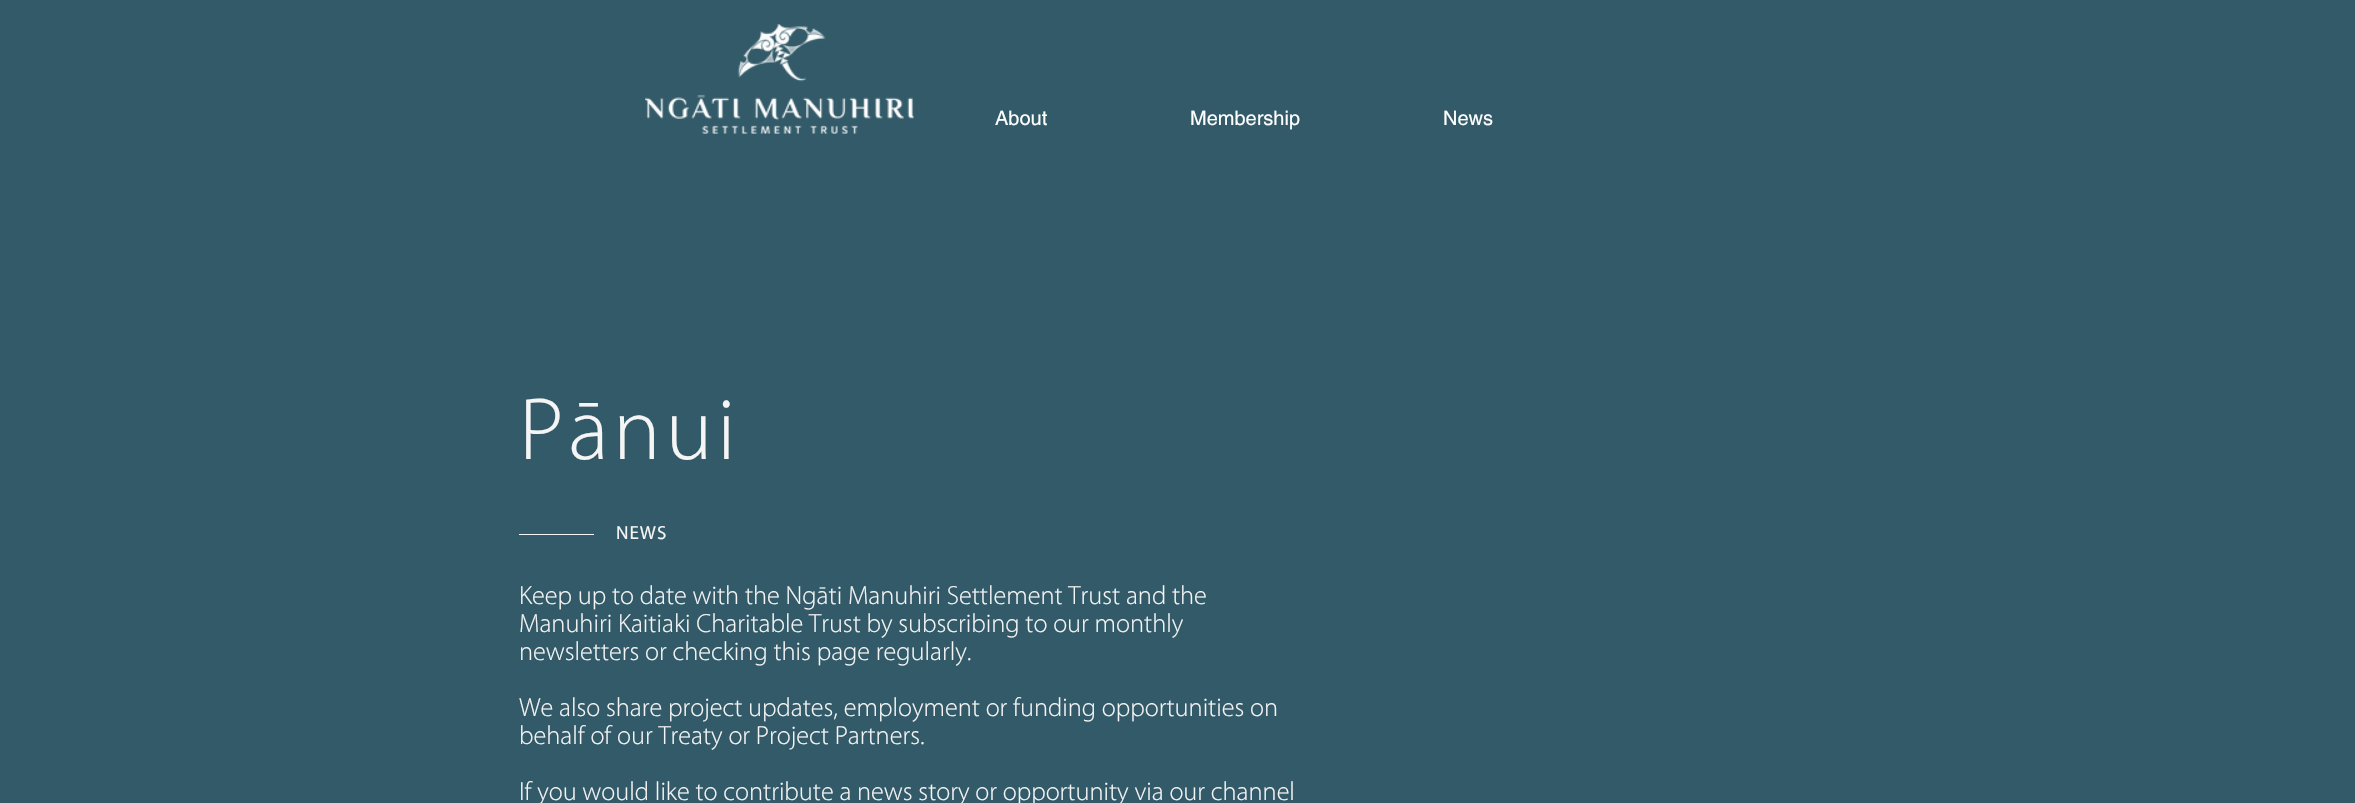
void draw(SkCanvas* canvas) {
    SkPaint paint;
    paint.setAntiAlias(true);
    auto face = [&](const char* family, int weight, float size, bool italic = false) {
        SkFontStyle style(weight, SkFontStyle::kNormal_Width,
            italic ? SkFontStyle::kItalic_Slant : SkFontStyle::kUpright_Slant);
        SkFont result(fontMgr->matchFamilyStyle(family, style), size);
        result.setSubpixel(true);
        return result;
    };
    auto write = [&](const char* s, float x, float y, const SkFont& font, SkColor color) {
        SkPaint ink(SkColor4f::FromColor(color));
        ink.setAntiAlias(true);
        canvas->drawString(s, x, y, font, ink);
    };
    auto writeSpaced = [&](const char* s, float x, float y, const SkFont& font, const SkPaint& ink, float letter, float word) {
        std::vector<SkGlyphID> glyphs(font.countText(s, strlen(s), SkTextEncoding::kUTF8));
        std::vector<float> xs(glyphs.size());
        font.textToGlyphs(s, strlen(s), SkTextEncoding::kUTF8, glyphs);
        font.getXPos(glyphs, xs, x);
        float extra = 0;
        for (size_t i = 0; i < glyphs.size(); i++) {
            xs[i] += extra;
            extra += letter + word * (glyphs[i] == font.unicharToGlyph(' '));
        }
        canvas->drawTextBlob(SkTextBlob::MakeFromPosHGlyphs(glyphs, xs, y, font), 0, 0, ink);
    };
    auto block = [&](float x, float y, float w, float h, SkColor color) {
        SkPaint ink(SkColor4f::FromColor(color));
        ink.setAntiAlias(true);
        canvas->drawRect(SkRect::MakeXYWH(x, y, w, h), ink);
    };
    auto paste = [&](const char* path, float x, float y, float w, float h) {
        auto image = SkImages::DeferredFromEncodedData(SkData::MakeFromFileName(path));
        canvas->drawImageRect(image, SkRect::MakeXYWH(x, y, w, h), SkSamplingOptions());
    };
    canvas->clear(SkColorSetRGB(50, 90, 104));
    paste("pic1.png", 645, 23, 269, 111);
    auto kFont1 = face("helvetica", 400, 20);
    write("About", 995, 125, kFont1, SK_ColorWHITE);
    write("Membership", 1190, 125, kFont1, SK_ColorWHITE);
    write("News", 1443, 125, kFont1, SK_ColorWHITE);
    auto kFont2 = face("Myriad", 300, 89);
    paint.setColor(SkColorSetRGB(245, 245, 245));
    writeSpaced("Pānui", 519, 459, kFont2, paint, 4.5f, 0);
    block(519, 534, 75, 1, SkColorSetRGB(245, 245, 245));
    auto kFont3 = face("Myriad", 400, 19);
    writeSpaced("NEWS", 616, 539, kFont3, paint, 1, 0);
    auto kFont4 = face("Myriad", 300, 26.25f);
    write("Keep up to date with the Ngāti Manuhiri Settlement Trust and the", 519, 604, kFont4, SkColorSetRGB(245, 245, 245));
    write("Manuhiri Kaitiaki Charitable Trust by subscribing to our monthly", 519, 632, kFont4, SkColorSetRGB(245, 245, 245));
    write("newsletters or checking this page regularly.", 519, 660, kFont4, SkColorSetRGB(245, 245, 245));
    write("We also share project updates, employment or funding opportunities on", 519, 716, kFont4, SkColorSetRGB(245, 245, 245));
    write("behalf of our Treaty or Project Partners.", 519, 744, kFont4, SkColorSetRGB(245, 245, 245));
    write("If you would like to contribute a news story or opportunity via our channel", 519, 800, kFont4, SkColorSetRGB(245, 245, 245));
}
